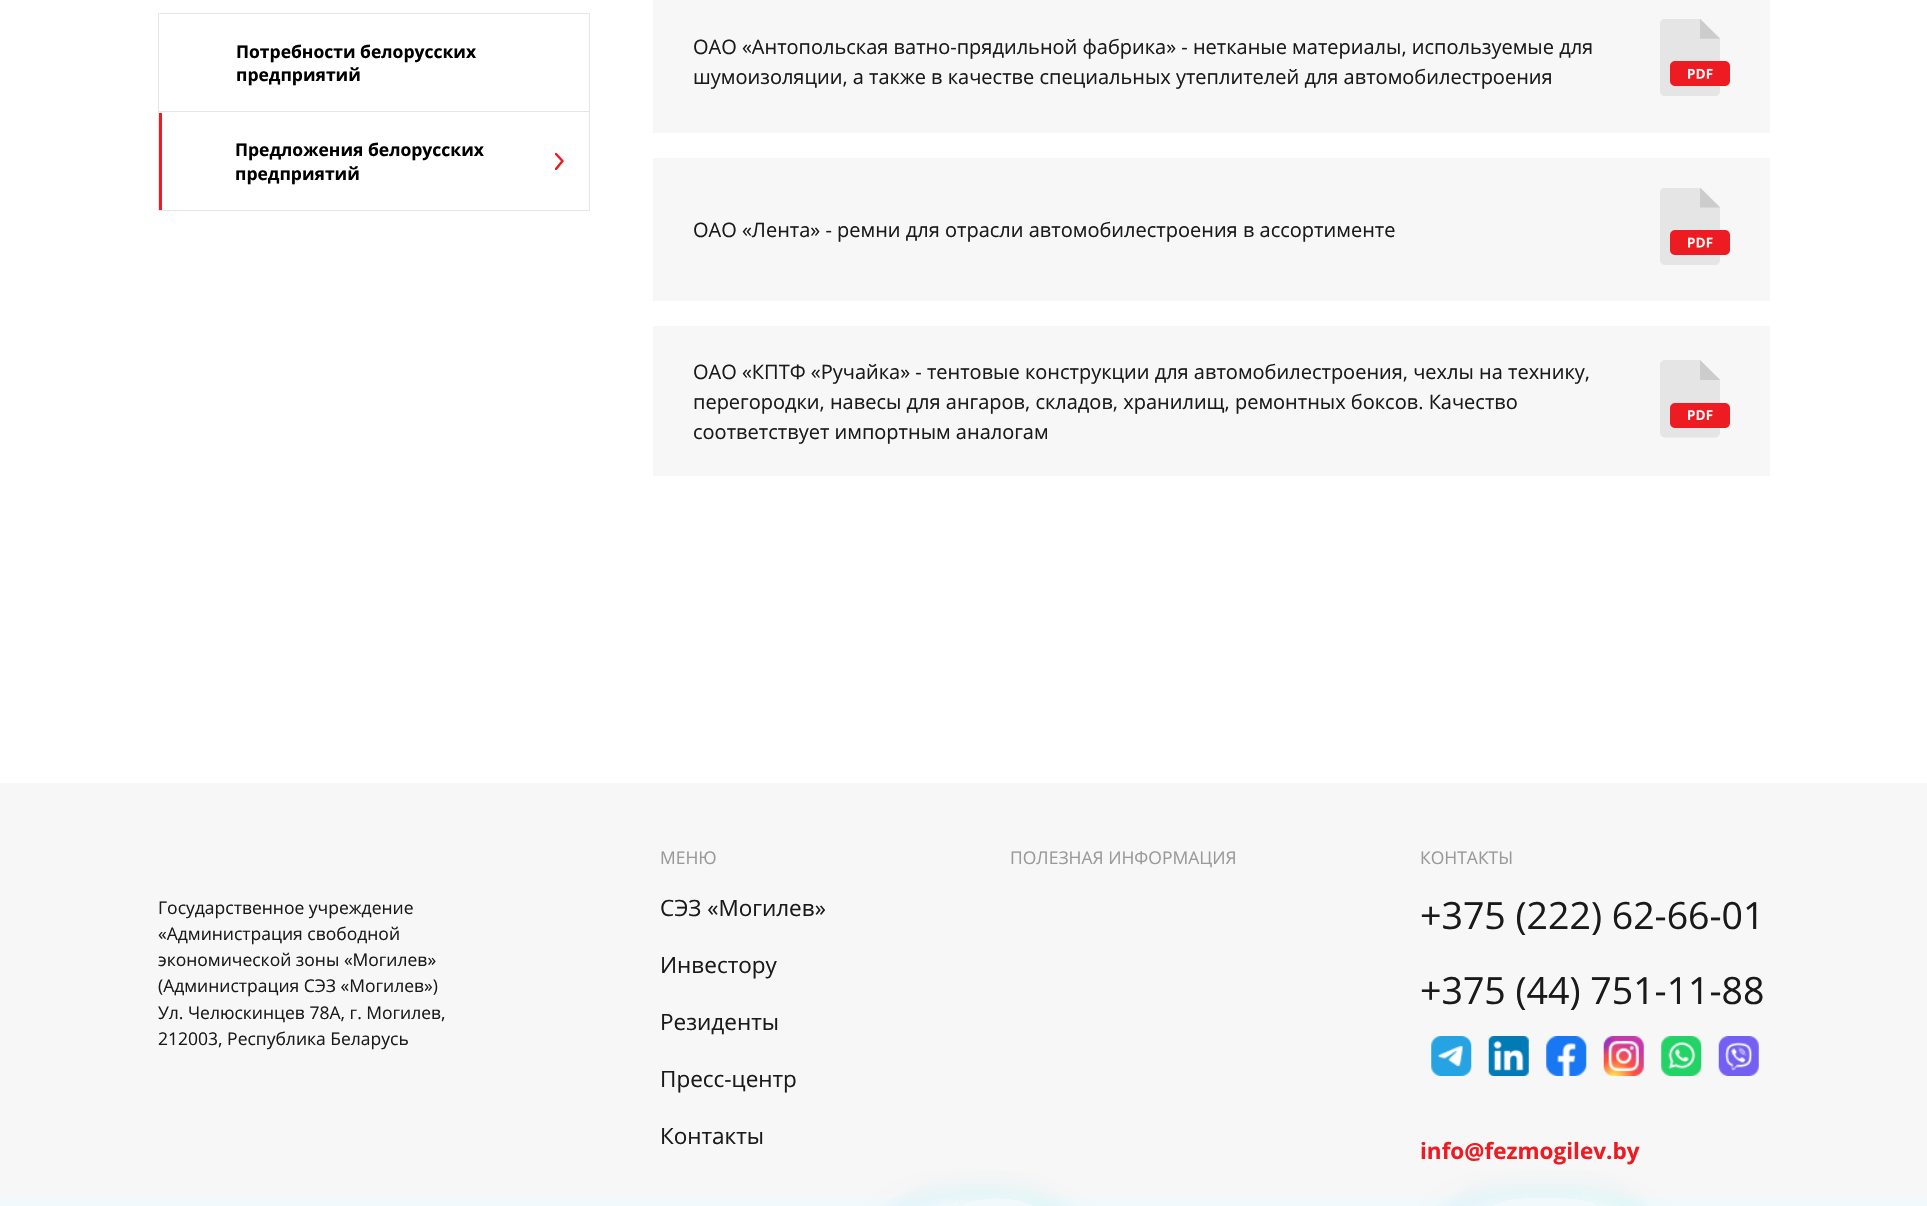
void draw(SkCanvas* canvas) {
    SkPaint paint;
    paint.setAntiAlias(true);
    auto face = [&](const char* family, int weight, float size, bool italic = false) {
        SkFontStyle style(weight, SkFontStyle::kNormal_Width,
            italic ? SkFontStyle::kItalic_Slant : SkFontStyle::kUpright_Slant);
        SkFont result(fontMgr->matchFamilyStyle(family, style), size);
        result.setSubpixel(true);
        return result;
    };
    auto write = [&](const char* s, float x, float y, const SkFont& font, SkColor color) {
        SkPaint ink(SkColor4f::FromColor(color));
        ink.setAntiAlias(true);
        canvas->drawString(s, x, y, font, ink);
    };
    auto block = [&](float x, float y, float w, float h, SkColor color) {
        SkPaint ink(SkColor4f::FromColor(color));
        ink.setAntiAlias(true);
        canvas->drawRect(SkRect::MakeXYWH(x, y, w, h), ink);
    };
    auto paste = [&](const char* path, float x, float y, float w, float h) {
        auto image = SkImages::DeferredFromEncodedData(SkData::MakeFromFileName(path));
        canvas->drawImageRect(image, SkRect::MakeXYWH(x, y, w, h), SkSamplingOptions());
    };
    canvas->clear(SK_ColorWHITE);
    paint.setStyle(SkPaint::kStroke_Style);
    paint.setStrokeWidth(1);
    paint.setColor(SkColorSetRGB(229, 229, 229));
    canvas->drawRect(SkRect::MakeXYWH(158.5f, 13.5f, 431, 99), paint);
    auto kFont1 = face("Open Sans", 700, 17.5f);
    write("Потребности белорусских", 236, 58, kFont1, SK_ColorBLACK);
    write("предприятий", 236, 81, kFont1, SK_ColorBLACK);
    block(159, 112, 430, 1, SK_ColorWHITE);
    canvas->drawRect(SkRect::MakeXYWH(158.5f, 111.5f, 431, 99), paint);
    block(159, 113, 3, 97, SkColorSetRGB(237, 28, 35));
    write("Предложения белорусских", 235, 156, kFont1, SK_ColorBLACK);
    write("предприятий", 235, 180, kFont1, SK_ColorBLACK);
    canvas->save();
    canvas->clipRect(SkRect::MakeXYWH(555, 153, 9, 17));
    paint.setStrokeWidth(2.5f);
    paint.setStrokeCap(SkPaint::kRound_Cap);
    paint.setStrokeJoin(SkPaint::kRound_Join);
    paint.setColor(SkColorSetRGB(237, 28, 35));
    canvas->drawPath(SkPathBuilder().moveTo(556, 169).lineTo(562.5f, 161).lineTo(556, 154).detach(), paint);
    canvas->restore();
    block(653, 0, 1117, 133, SkColorSetRGB(247, 247, 247));
    auto kFont2 = face("Open Sans", 400, 20);
    write("ОАО «Антопольская ватно-прядильной фабрика» - нетканые материалы, используемые для", 693, 54, kFont2, SkColorSetRGB(26, 26, 26));
    write("шумоизоляции, а также в качестве специальных утеплителей для автомобилестроения", 693, 84, kFont2, SkColorSetRGB(26, 26, 26));
    paste("pic1.png", 1660, 19, 70, 77);
    block(653, 158, 1117, 143, SkColorSetRGB(247, 247, 247));
    write("ОАО «Лента» - ремни для отрасли автомобилестроения в ассортименте", 693, 237, kFont2, SkColorSetRGB(26, 26, 26));
    paste("pic2.png", 1660, 188, 70, 77);
    block(653, 326, 1117, 150, SkColorSetRGB(247, 247, 247));
    write("ОАО «КПТФ «Ручайка» - тентовые конструкции для автомобилестроения, чехлы на технику,", 693, 379, kFont2, SkColorSetRGB(26, 26, 26));
    write("перегородки, навесы для ангаров, складов, хранилищ, ремонтных боксов. Качество", 693, 409, kFont2, SkColorSetRGB(26, 26, 26));
    write("соответствует импортным аналогам", 693, 439, kFont2, SkColorSetRGB(26, 26, 26));
    paste("pic3.png", 1660, 360, 70, 78);
    block(0, 783, 1927, 415, SkColorSetRGB(247, 247, 247));
    auto kFont3 = face("Open Sans", 400, 17.5f);
    write("Государственное учреждение", 158, 914, kFont3, SkColorSetRGB(26, 26, 26));
    write("«Администрация свободной", 158, 940, kFont3, SkColorSetRGB(26, 26, 26));
    write("экономической зоны «Могилев»", 158, 966, kFont3, SkColorSetRGB(26, 26, 26));
    write("(Администрация СЭЗ «Могилев»)", 158, 992, kFont3, SkColorSetRGB(26, 26, 26));
    write("Ул. Челюскинцев 78А, г. Могилев,", 158, 1019, kFont3, SkColorSetRGB(26, 26, 26));
    write("212003, Республика Беларусь", 158, 1045, kFont3, SkColorSetRGB(26, 26, 26));
    write("МЕНЮ", 660, 864, kFont3, SkColorSetRGB(153, 153, 153));
    auto kFont4 = face("Open Sans", 400, 22.5f);
    write("СЭЗ «Могилев»", 660, 916, kFont4, SkColorSetRGB(26, 26, 26));
    write("Инвестору", 660, 973, kFont4, SkColorSetRGB(26, 26, 26));
    write("Резиденты", 660, 1030, kFont4, SkColorSetRGB(26, 26, 26));
    write("Пресс-центр", 660, 1087, kFont4, SkColorSetRGB(26, 26, 26));
    write("Контакты", 660, 1144, kFont4, SkColorSetRGB(26, 26, 26));
    write("ПОЛЕЗНАЯ ИНФОРМАЦИЯ", 1010, 864, kFont3, SkColorSetRGB(153, 153, 153));
    write("КОНТАКТЫ", 1420, 864, kFont3, SkColorSetRGB(153, 153, 153));
    auto kFont5 = face("Open Sans", 400, 37.5f);
    write("+375 (222) 62-66-01", 1420, 929, kFont5, SkColorSetRGB(26, 26, 26));
    write("+375 (44) 751-11-88", 1420, 1004, kFont5, SkColorSetRGB(26, 26, 26));
    paste("pic4.png", 1431, 1036, 41, 40);
    paste("pic5.png", 1488, 1036, 41, 40);
    paste("pic6.png", 1546, 1036, 41, 40);
    paste("pic7.png", 1603, 1036, 41, 40);
    paste("pic8.png", 1661, 1036, 41, 40);
    paste("pic9.png", 1718, 1036, 41, 40);
    auto kFont6 = face("Open Sans", 700, 22.5f);
    write("info@fezmogilev.by", 1420, 1159, kFont6, SkColorSetRGB(237, 28, 35));
    block(0, 1198, 1927, 8, SkColorSetRGB(241, 249, 252));
    canvas->save();
    canvas->clipPath(SkPathBuilder(SkPathFillType::kEvenOdd).moveTo(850, 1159).lineTo(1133, 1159).lineTo(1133, 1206).lineTo(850, 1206).close().moveTo(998.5f, 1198).cubicTo(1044, 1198, 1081, 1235, 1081, 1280.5f).lineTo(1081, 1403).lineTo(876, 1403).lineTo(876, 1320.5f).cubicTo(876, 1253, 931, 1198, 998.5f, 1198).close().detach(), true);
    paint.setStyle(SkPaint::kFill_Style);
    paint.setColor(SkColorSetRGB(197, 242, 237));
    paint.setMaskFilter(SkMaskFilter::MakeBlur(kNormal_SkBlurStyle, 12.5f));
    canvas->drawRoundRect(SkRect::MakeXYWH(889, 1198, 205, 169), 123, 123, paint);
    paint.setMaskFilter(nullptr);
    canvas->restore();
    canvas->save();
    canvas->clipPath(SkPathBuilder(SkPathFillType::kEvenOdd).moveTo(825, 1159).lineTo(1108, 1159).lineTo(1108, 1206).lineTo(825, 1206).close().moveTo(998.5f, 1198).cubicTo(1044, 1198, 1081, 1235, 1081, 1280.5f).lineTo(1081, 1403).lineTo(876, 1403).lineTo(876, 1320.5f).cubicTo(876, 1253, 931, 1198, 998.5f, 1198).close().detach(), true);
    paint.setColor(SkColorSetRGB(200, 235, 248));
    paint.setMaskFilter(SkMaskFilter::MakeBlur(kNormal_SkBlurStyle, 12.5f));
    canvas->drawRoundRect(SkRect::MakeXYWH(864, 1198, 205, 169), 123, 123, paint);
    paint.setMaskFilter(nullptr);
    canvas->restore();
    canvas->save();
    canvas->clipPath(SkPathBuilder(SkPathFillType::kEvenOdd).moveTo(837, 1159).lineTo(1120, 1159).lineTo(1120, 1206).lineTo(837, 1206).close().moveTo(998.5f, 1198).cubicTo(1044, 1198, 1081, 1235, 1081, 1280.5f).lineTo(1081, 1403).lineTo(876, 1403).lineTo(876, 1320.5f).cubicTo(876, 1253, 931, 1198, 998.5f, 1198).close().detach(), true);
    paint.setColor(SK_ColorWHITE);
    paint.setMaskFilter(SkMaskFilter::MakeBlur(kNormal_SkBlurStyle, 12.5f));
    canvas->drawRoundRect(SkRect::MakeXYWH(876, 1198, 205, 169), 123, 123, paint);
    paint.setMaskFilter(nullptr);
    canvas->restore();
    canvas->save();
    canvas->clipPath(SkPathBuilder(SkPathFillType::kEvenOdd).moveTo(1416, 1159).lineTo(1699, 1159).lineTo(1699, 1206).lineTo(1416, 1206).close().moveTo(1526, 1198).lineTo(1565, 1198).cubicTo(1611, 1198, 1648, 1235, 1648, 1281).lineTo(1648, 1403).lineTo(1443, 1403).lineTo(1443, 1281).cubicTo(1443, 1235, 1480, 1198, 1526, 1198).close().detach(), true);
    paint.setColor(SkColorSetRGB(197, 242, 237));
    paint.setMaskFilter(SkMaskFilter::MakeBlur(kNormal_SkBlurStyle, 12.5f));
    canvas->drawRoundRect(SkRect::MakeXYWH(1455, 1198, 205, 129), 83, 83, paint);
    paint.setMaskFilter(nullptr);
    canvas->restore();
    canvas->save();
    canvas->clipPath(SkPathBuilder(SkPathFillType::kEvenOdd).moveTo(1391, 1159).lineTo(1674, 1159).lineTo(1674, 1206).lineTo(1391, 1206).close().moveTo(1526, 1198).lineTo(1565, 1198).cubicTo(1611, 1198, 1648, 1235, 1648, 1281).lineTo(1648, 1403).lineTo(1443, 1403).lineTo(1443, 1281).cubicTo(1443, 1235, 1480, 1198, 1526, 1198).close().detach(), true);
    paint.setColor(SkColorSetRGB(200, 235, 248));
    paint.setMaskFilter(SkMaskFilter::MakeBlur(kNormal_SkBlurStyle, 12.5f));
    canvas->drawRoundRect(SkRect::MakeXYWH(1430, 1198, 205, 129), 83, 83, paint);
    paint.setMaskFilter(nullptr);
    canvas->restore();
    canvas->save();
    canvas->clipPath(SkPathBuilder(SkPathFillType::kEvenOdd).moveTo(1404, 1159).lineTo(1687, 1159).lineTo(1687, 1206).lineTo(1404, 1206).close().moveTo(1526, 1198).lineTo(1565, 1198).cubicTo(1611, 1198, 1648, 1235, 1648, 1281).lineTo(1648, 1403).lineTo(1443, 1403).lineTo(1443, 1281).cubicTo(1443, 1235, 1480, 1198, 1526, 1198).close().detach(), true);
    paint.setColor(SK_ColorWHITE);
    paint.setMaskFilter(SkMaskFilter::MakeBlur(kNormal_SkBlurStyle, 12.5f));
    canvas->drawRoundRect(SkRect::MakeXYWH(1443, 1198, 205, 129), 83, 83, paint);
    paint.setMaskFilter(nullptr);
    canvas->restore();
}
